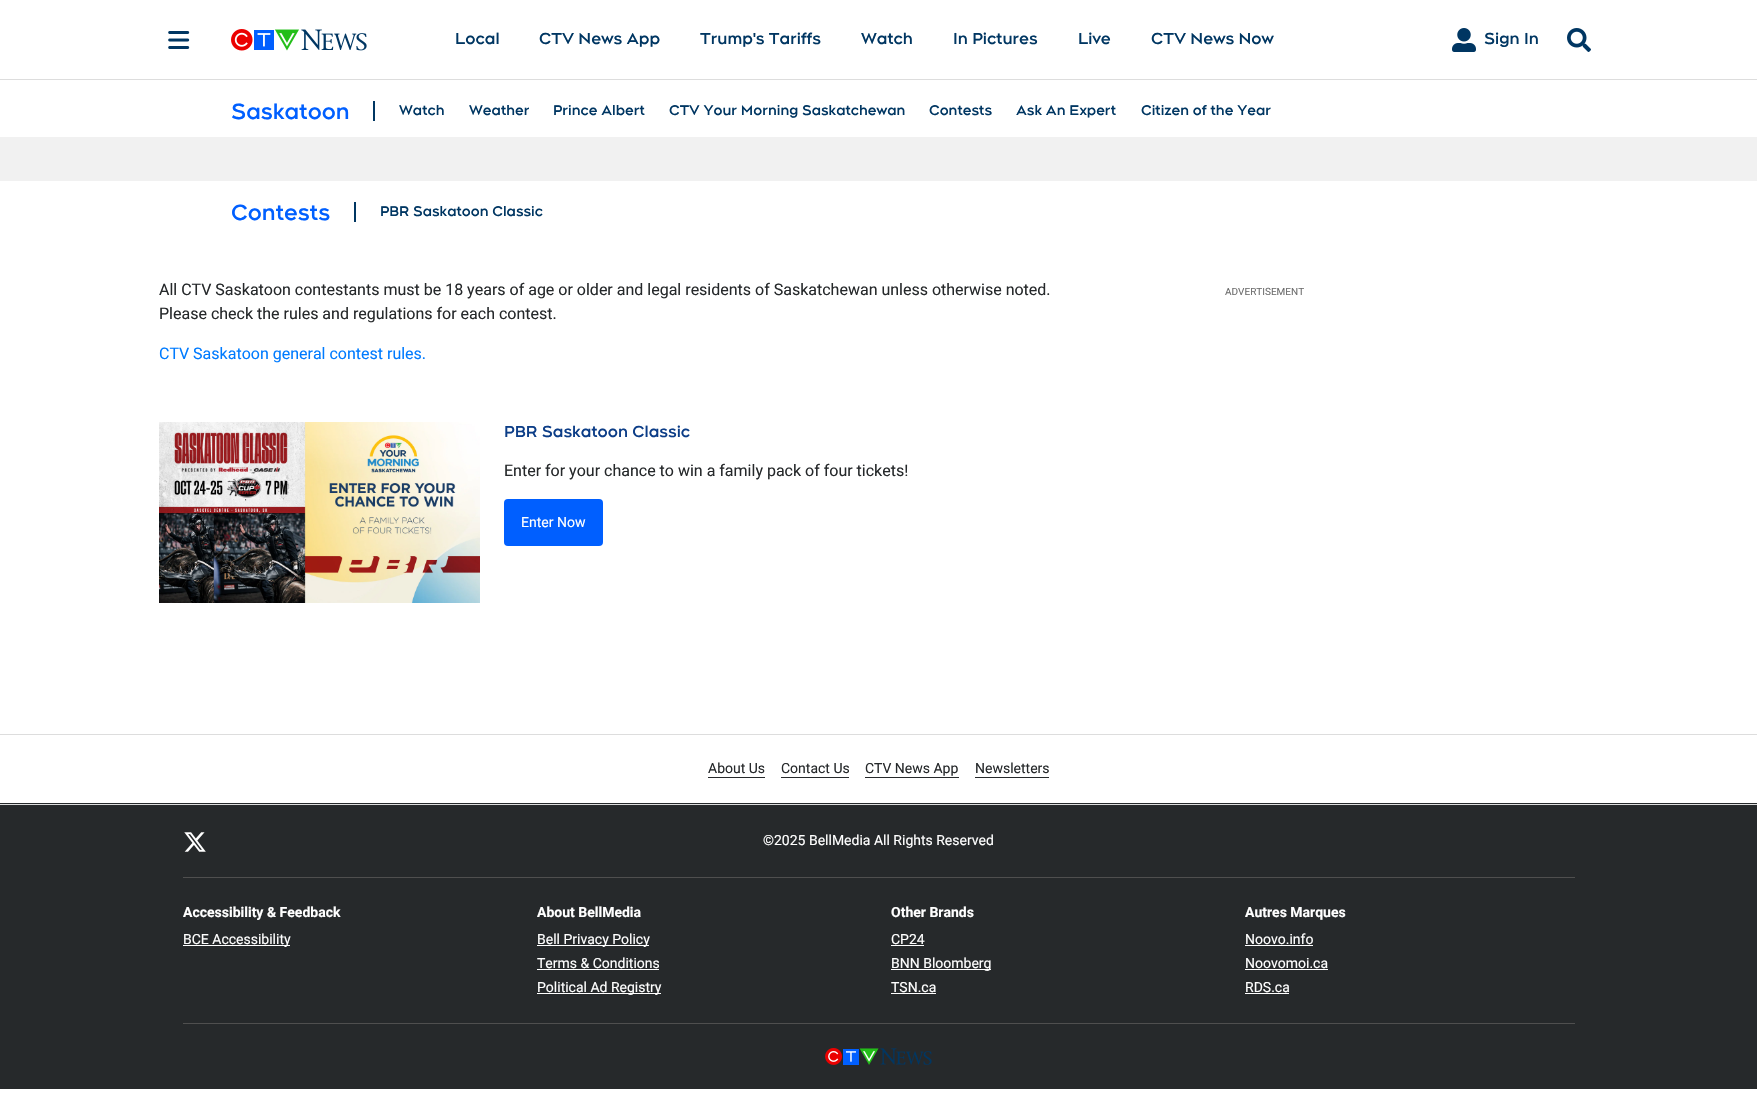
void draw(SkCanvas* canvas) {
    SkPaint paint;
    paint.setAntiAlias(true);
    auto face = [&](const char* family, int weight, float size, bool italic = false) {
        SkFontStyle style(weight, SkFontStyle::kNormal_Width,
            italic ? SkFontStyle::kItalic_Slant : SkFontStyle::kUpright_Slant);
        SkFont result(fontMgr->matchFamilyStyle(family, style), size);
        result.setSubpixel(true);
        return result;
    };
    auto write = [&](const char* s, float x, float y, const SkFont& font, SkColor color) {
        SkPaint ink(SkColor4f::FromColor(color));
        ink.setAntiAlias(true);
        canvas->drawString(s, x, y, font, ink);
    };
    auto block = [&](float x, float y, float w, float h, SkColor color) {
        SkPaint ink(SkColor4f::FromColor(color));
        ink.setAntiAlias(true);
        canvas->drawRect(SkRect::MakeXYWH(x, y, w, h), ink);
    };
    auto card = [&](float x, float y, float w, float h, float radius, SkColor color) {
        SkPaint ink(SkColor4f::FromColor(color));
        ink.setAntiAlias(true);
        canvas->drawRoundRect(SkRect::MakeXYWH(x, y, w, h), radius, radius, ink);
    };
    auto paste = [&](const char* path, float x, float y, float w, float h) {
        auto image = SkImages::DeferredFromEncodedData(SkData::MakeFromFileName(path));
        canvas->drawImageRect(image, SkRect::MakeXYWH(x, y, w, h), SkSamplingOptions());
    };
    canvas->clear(SK_ColorWHITE);
    block(0, 79, 1757, 1, SkColorSetRGB(221, 221, 221));
    paste("pic1.png", 168, 31, 22, 18);
    paste("pic2.png", 231, 29, 136, 22);
    auto kFont1 = face("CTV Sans", 700, 16);
    write("Local", 455, 44, kFont1, SkColorSetRGB(0, 54, 98));
    write("CTV News App", 539, 44, kFont1, SkColorSetRGB(0, 54, 98));
    write("Trump's Tariffs", 700, 44, kFont1, SkColorSetRGB(0, 54, 98));
    write("Watch", 861, 44, kFont1, SkColorSetRGB(0, 54, 98));
    write("In Pictures", 953, 44, kFont1, SkColorSetRGB(0, 54, 98));
    write("Live", 1078, 44, kFont1, SkColorSetRGB(0, 54, 98));
    write("CTV News Now", 1151, 44, kFont1, SkColorSetRGB(0, 54, 98));
    paste("pic3.png", 1452, 28, 24, 24);
    write("Sign In", 1484, 44, kFont1, SkColorSetRGB(0, 54, 98));
    paste("pic4.png", 1567, 28, 24, 24);
    auto kFont2 = face("CTV Sans", 700, 22);
    write("Saskatoon", 231, 119, kFont2, SkColorSetRGB(0, 95, 255));
    block(373, 101, 2, 20, SkColorSetRGB(0, 54, 98));
    auto kFont3 = face("CTV Sans", 700, 14);
    write("Watch", 399, 115, kFont3, SkColorSetRGB(0, 54, 98));
    write("Weather", 469, 115, kFont3, SkColorSetRGB(0, 54, 98));
    write("Prince Albert", 553, 115, kFont3, SkColorSetRGB(0, 54, 98));
    write("CTV Your Morning Saskatchewan", 669, 115, kFont3, SkColorSetRGB(0, 54, 98));
    write("Contests", 929, 115, kFont3, SkColorSetRGB(0, 54, 98));
    write("Ask An Expert", 1016, 115, kFont3, SkColorSetRGB(0, 54, 98));
    write("Citizen of the Year", 1141, 115, kFont3, SkColorSetRGB(0, 54, 98));
    block(0, 137, 1757, 44, SkColorSetRGB(241, 241, 241));
    write("Contests", 231, 220, kFont2, SkColorSetRGB(0, 95, 255));
    block(354, 202, 2, 20, SkColorSetRGB(0, 54, 98));
    write("PBR Saskatoon Classic", 380, 216, kFont3, SkColorSetRGB(0, 54, 98));
    auto kFont4 = face("Roboto", 400, 16);
    write("All CTV Saskatoon contestants must be 18 years of age or older and legal residents of Saskatchewan unless otherwise noted.", 159, 295, kFont4, SkColorSetRGB(38, 41, 43));
    write("Please check the rules and regulations for each contest.", 159, 319, kFont4, SkColorSetRGB(38, 41, 43));
    write("CTV Saskatoon general contest rules.", 159, 359, kFont4, SkColorSetRGB(0, 123, 255));
    paste("pic5.png", 159, 422, 321, 181);
    write("PBR Saskatoon Classic", 504, 437, kFont1, SkColorSetRGB(12, 61, 135));
    write("Enter for your chance to win a family pack of four tickets!", 504, 476, kFont4, SkColorSetRGB(38, 41, 43));
    card(504, 499, 99, 47, 4, SkColorSetRGB(0, 95, 255));
    auto kFont5 = face("Roboto", 400, 14);
    write("Enter Now", 521, 527, kFont5, SK_ColorWHITE);
    auto kFont6 = face("Roboto", 400, 10);
    write("ADVERTISEMENT", 1225, 295, kFont6, SkColorSetRGB(110, 110, 110));
    block(0, 803, 1757, 286, SkColorSetRGB(38, 41, 43));
    block(0, 734, 1757, 1, SkColorSetRGB(221, 221, 221));
    write("About Us", 708, 773, kFont5, SkColorSetRGB(38, 41, 43));
    block(708, 777, 57, 1, SkColorSetRGB(38, 41, 43));
    write("Contact Us", 781, 773, kFont5, SkColorSetRGB(38, 41, 43));
    block(781, 777, 68, 1, SkColorSetRGB(38, 41, 43));
    write("CTV News App", 865, 773, kFont5, SkColorSetRGB(38, 41, 43));
    block(865, 777, 94, 1, SkColorSetRGB(38, 41, 43));
    write("Newsletters", 975, 773, kFont5, SkColorSetRGB(38, 41, 43));
    block(975, 777, 74, 1, SkColorSetRGB(38, 41, 43));
    block(0, 804, 1757, 1, SkColorSetRGB(221, 221, 221));
    block(183, 877, 1392, 1, SkColorSetRGB(79, 79, 79));
    paste("pic6.png", 184, 832, 22, 20);
    write("©2025 BellMedia All Rights Reserved", 763, 845, kFont5, SK_ColorWHITE);
    auto kFont7 = face("Roboto", 700, 14);
    write("Accessibility & Feedback", 183, 917, kFont7, SK_ColorWHITE);
    block(183, 945, 107, 1, SK_ColorWHITE);
    write("BCE Accessibility", 183, 944, kFont5, SK_ColorWHITE);
    write("About BellMedia", 537, 917, kFont7, SK_ColorWHITE);
    block(537, 945, 112, 1, SK_ColorWHITE);
    write("Bell Privacy Policy", 537, 944, kFont5, SK_ColorWHITE);
    write("Terms & Conditions", 537, 968, kFont5, SK_ColorWHITE);
    block(537, 969, 122, 1, SK_ColorWHITE);
    block(537, 993, 124, 1, SK_ColorWHITE);
    write("Political Ad Registry", 537, 992, kFont5, SK_ColorWHITE);
    write("Other Brands", 891, 917, kFont7, SK_ColorWHITE);
    write("CP24", 891, 944, kFont5, SK_ColorWHITE);
    block(891, 945, 33, 1, SK_ColorWHITE);
    block(891, 969, 100, 1, SK_ColorWHITE);
    write("BNN Bloomberg", 891, 968, kFont5, SK_ColorWHITE);
    write("TSN.ca", 891, 992, kFont5, SK_ColorWHITE);
    block(891, 993, 45, 1, SK_ColorWHITE);
    write("Autres Marques", 1245, 917, kFont7, SK_ColorWHITE);
    write("Noovo.info", 1245, 944, kFont5, SK_ColorWHITE);
    block(1245, 945, 68, 1, SK_ColorWHITE);
    write("Noovomoi.ca", 1245, 968, kFont5, SK_ColorWHITE);
    block(1245, 969, 83, 1, SK_ColorWHITE);
    write("RDS.ca", 1245, 992, kFont5, SK_ColorWHITE);
    block(1245, 993, 44, 1, SK_ColorWHITE);
    block(183, 1023, 1392, 1, SkColorSetRGB(79, 79, 79));
    paste("pic7.png", 825, 1048, 107, 17);
}
